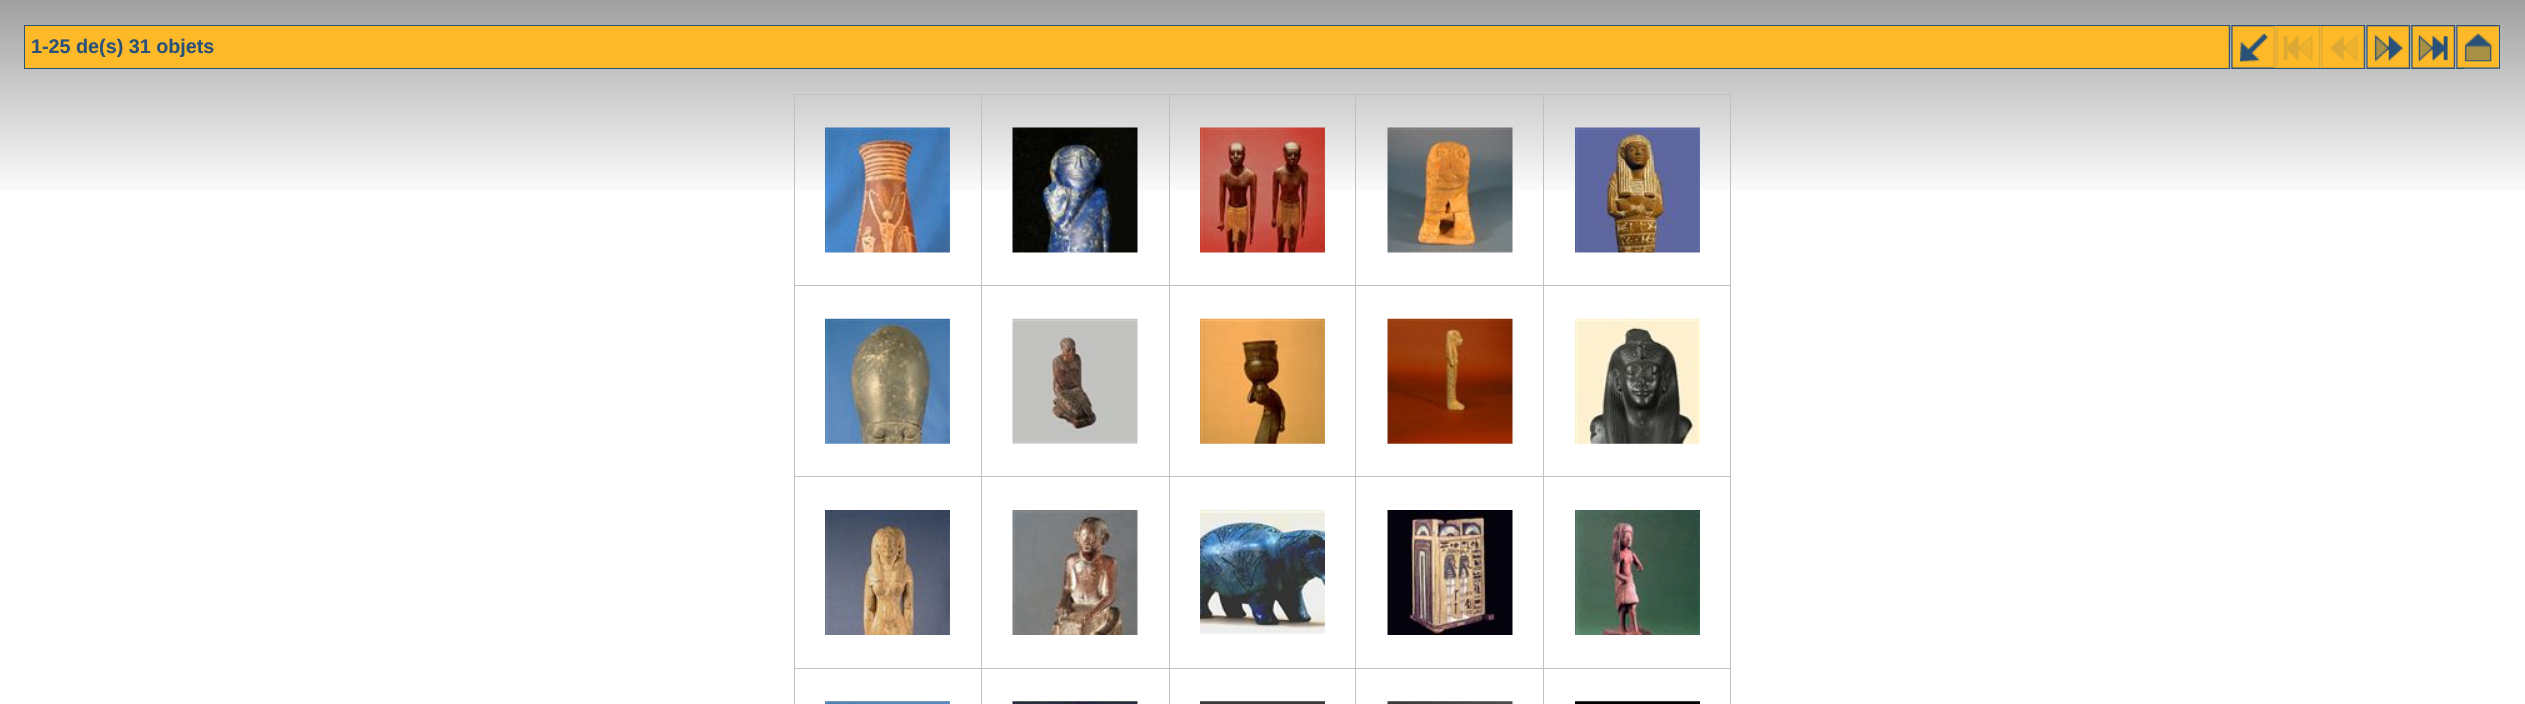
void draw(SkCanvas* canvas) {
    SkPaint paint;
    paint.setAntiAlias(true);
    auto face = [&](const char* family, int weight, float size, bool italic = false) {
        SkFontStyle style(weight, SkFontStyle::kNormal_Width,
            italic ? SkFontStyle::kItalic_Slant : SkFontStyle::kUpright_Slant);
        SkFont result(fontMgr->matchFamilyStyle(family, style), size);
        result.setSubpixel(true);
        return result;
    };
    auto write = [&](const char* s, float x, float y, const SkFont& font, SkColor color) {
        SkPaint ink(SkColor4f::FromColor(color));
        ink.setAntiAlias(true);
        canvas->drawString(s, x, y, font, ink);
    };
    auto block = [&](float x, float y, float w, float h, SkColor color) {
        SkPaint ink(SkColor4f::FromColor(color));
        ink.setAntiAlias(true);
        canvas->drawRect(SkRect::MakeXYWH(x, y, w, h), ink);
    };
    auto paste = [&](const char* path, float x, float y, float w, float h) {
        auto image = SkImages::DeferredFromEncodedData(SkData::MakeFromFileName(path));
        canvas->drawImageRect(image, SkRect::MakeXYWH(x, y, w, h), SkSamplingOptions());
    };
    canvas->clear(SK_ColorWHITE);
    paste("pic1.png", 0, 0, 2525, 190);
    block(25, 26, 2429, 42, SkColorSetRGB(253, 185, 39));
    paint.setStyle(SkPaint::kStroke_Style);
    paint.setStrokeWidth(1);
    paint.setColor(SkColorSetRGB(42, 81, 120));
    canvas->drawRect(SkRect::MakeXYWH(24.5f, 25.5f, 2439, 43), paint);
    auto kFont1 = face("Liberation Sans", 700, 19.75f);
    write("1-25 de(s) 31 objets", 31, 53, kFont1, SkColorSetRGB(42, 81, 120));
    block(2499, 25, 1, 44, SkColorSetRGB(42, 81, 120));
    paste("pic2.png", 2228, 25, 46, 44);
    paste("pic3.png", 2273, 25, 46, 44);
    paste("pic5.png", 2363, 25, 46, 44);
    paste("pic4.png", 2318, 25, 46, 44);
    paste("pic6.png", 2408, 25, 46, 44);
    paste("pic7.png", 2453, 25, 46, 44);
    block(1543, 94, 188, 1, SkColorSetRGB(192, 192, 192));
    block(1543, 285, 188, 1, SkColorSetRGB(192, 192, 192));
    block(1543, 476, 188, 1, SkColorSetRGB(192, 192, 192));
    block(1543, 668, 188, 1, SkColorSetRGB(192, 192, 192));
    block(1543, 668, 1, 36, SkColorSetRGB(192, 192, 192));
    block(1355, 668, 189, 1, SkColorSetRGB(192, 192, 192));
    block(1543, 476, 1, 193, SkColorSetRGB(192, 192, 192));
    block(1355, 476, 189, 1, SkColorSetRGB(192, 192, 192));
    block(1543, 285, 1, 193, SkColorSetRGB(192, 192, 192));
    block(1355, 285, 189, 1, SkColorSetRGB(192, 192, 192));
    block(1543, 94, 1, 192, SkColorSetRGB(192, 192, 192));
    block(1355, 94, 189, 1, SkColorSetRGB(192, 192, 192));
    block(1355, 668, 1, 36, SkColorSetRGB(192, 192, 192));
    block(1169, 668, 187, 1, SkColorSetRGB(192, 192, 192));
    block(1355, 476, 1, 193, SkColorSetRGB(192, 192, 192));
    block(1169, 476, 187, 1, SkColorSetRGB(192, 192, 192));
    block(1355, 285, 1, 193, SkColorSetRGB(192, 192, 192));
    block(1169, 285, 187, 1, SkColorSetRGB(192, 192, 192));
    block(1355, 94, 1, 192, SkColorSetRGB(192, 192, 192));
    block(1169, 94, 187, 1, SkColorSetRGB(192, 192, 192));
    block(1169, 668, 1, 36, SkColorSetRGB(192, 192, 192));
    block(981, 668, 189, 1, SkColorSetRGB(192, 192, 192));
    block(1169, 476, 1, 193, SkColorSetRGB(192, 192, 192));
    block(981, 476, 189, 1, SkColorSetRGB(192, 192, 192));
    block(1169, 285, 1, 193, SkColorSetRGB(192, 192, 192));
    block(981, 285, 189, 1, SkColorSetRGB(192, 192, 192));
    block(1169, 94, 1, 192, SkColorSetRGB(192, 192, 192));
    block(981, 94, 189, 1, SkColorSetRGB(192, 192, 192));
    block(981, 668, 1, 36, SkColorSetRGB(192, 192, 192));
    block(794, 668, 189, 1, SkColorSetRGB(192, 192, 192));
    block(981, 476, 1, 193, SkColorSetRGB(192, 192, 192));
    block(794, 476, 189, 1, SkColorSetRGB(192, 192, 192));
    block(981, 285, 1, 193, SkColorSetRGB(192, 192, 192));
    block(794, 285, 189, 1, SkColorSetRGB(192, 192, 192));
    block(981, 94, 1, 192, SkColorSetRGB(192, 192, 192));
    block(794, 94, 189, 1, SkColorSetRGB(192, 192, 192));
    block(794, 668, 1, 36, SkColorSetRGB(192, 192, 192));
    block(794, 476, 1, 193, SkColorSetRGB(192, 192, 192));
    block(794, 285, 1, 193, SkColorSetRGB(192, 192, 192));
    block(794, 94, 1, 192, SkColorSetRGB(192, 192, 192));
    paste("pic8.png", 825, 127, 125, 126);
    paste("pic9.png", 1012, 127, 126, 126);
    paste("pic10.png", 1200, 127, 125, 126);
    paste("pic11.png", 1387, 127, 126, 126);
    block(1730, 668, 1, 36, SkColorSetRGB(192, 192, 192));
    block(1730, 476, 1, 193, SkColorSetRGB(192, 192, 192));
    block(1730, 285, 1, 193, SkColorSetRGB(192, 192, 192));
    block(1730, 94, 1, 192, SkColorSetRGB(192, 192, 192));
    paste("pic12.png", 1575, 127, 125, 126);
    paste("pic13.png", 825, 318, 125, 126);
    paste("pic14.png", 1012, 318, 126, 126);
    paste("pic15.png", 1200, 318, 125, 126);
    paste("pic16.png", 1387, 318, 126, 126);
    paste("pic17.png", 1575, 318, 125, 126);
    paste("pic18.png", 825, 510, 125, 125);
    paste("pic19.png", 1012, 510, 126, 125);
    paste("pic20.png", 1200, 510, 125, 124);
    paste("pic21.png", 1387, 510, 126, 125);
    paste("pic22.png", 1575, 510, 125, 125);
    paste("pic23.png", 825, 701, 125, 3);
    paste("pic24.png", 1012, 701, 126, 3);
    paste("pic25.png", 1200, 701, 125, 3);
    paste("pic26.png", 1387, 701, 126, 3);
    paste("pic27.png", 1575, 701, 125, 3);
}
